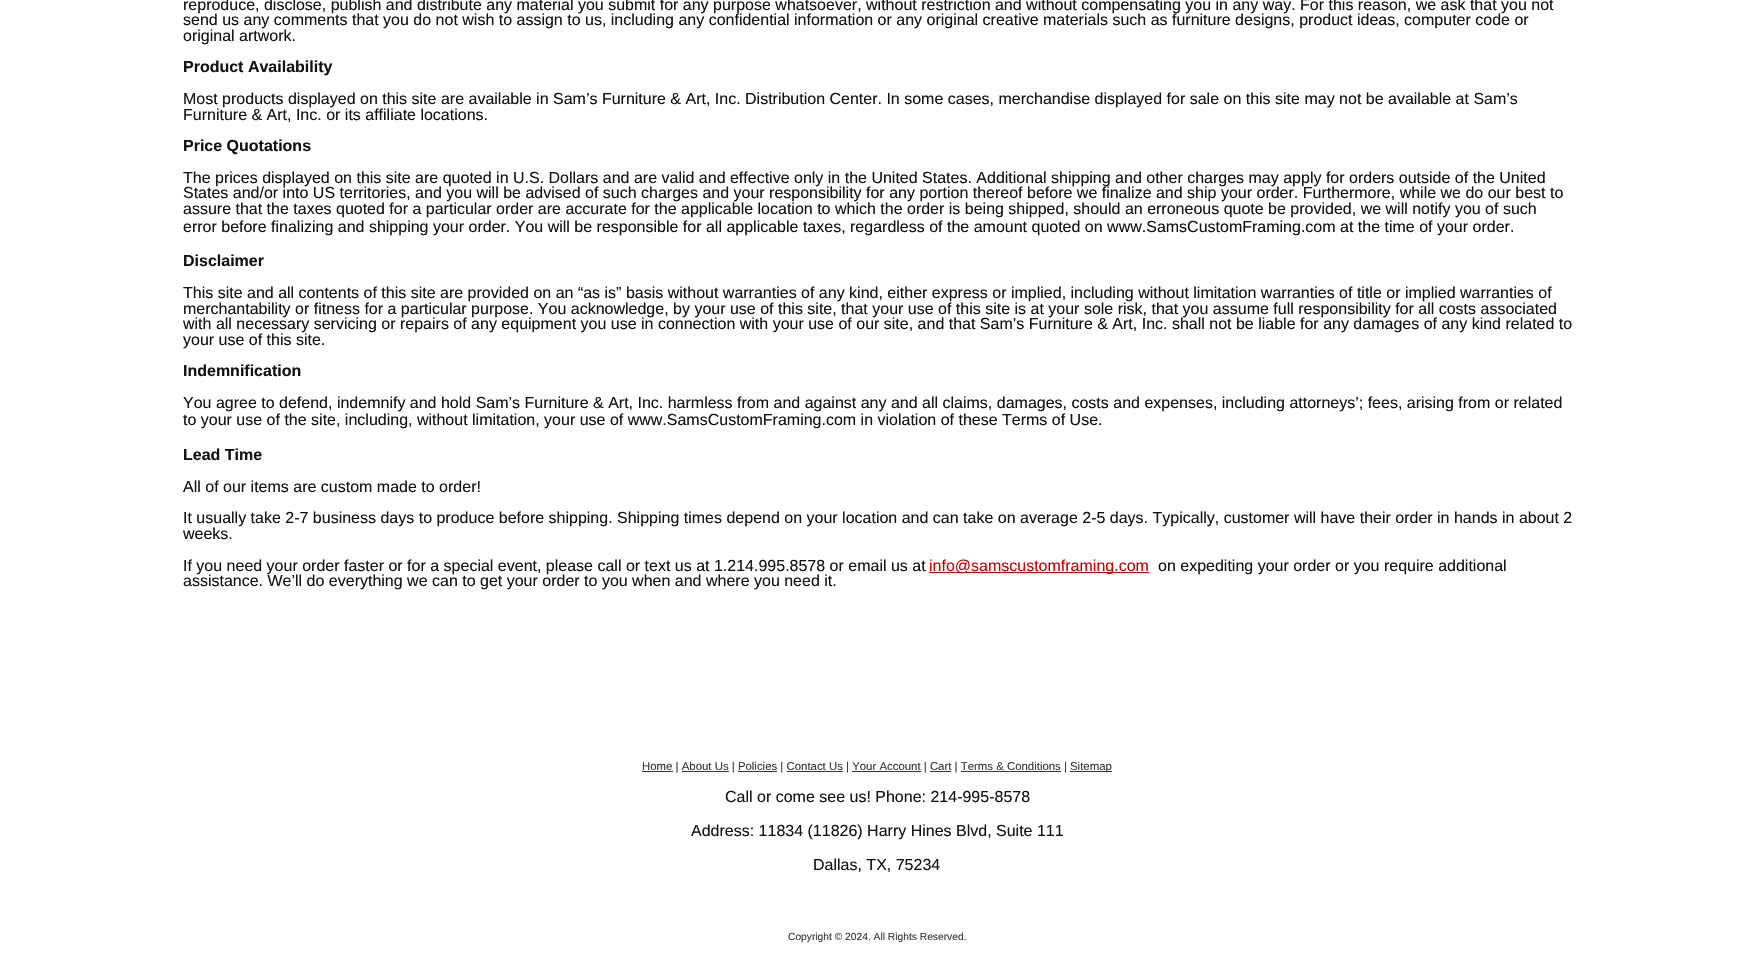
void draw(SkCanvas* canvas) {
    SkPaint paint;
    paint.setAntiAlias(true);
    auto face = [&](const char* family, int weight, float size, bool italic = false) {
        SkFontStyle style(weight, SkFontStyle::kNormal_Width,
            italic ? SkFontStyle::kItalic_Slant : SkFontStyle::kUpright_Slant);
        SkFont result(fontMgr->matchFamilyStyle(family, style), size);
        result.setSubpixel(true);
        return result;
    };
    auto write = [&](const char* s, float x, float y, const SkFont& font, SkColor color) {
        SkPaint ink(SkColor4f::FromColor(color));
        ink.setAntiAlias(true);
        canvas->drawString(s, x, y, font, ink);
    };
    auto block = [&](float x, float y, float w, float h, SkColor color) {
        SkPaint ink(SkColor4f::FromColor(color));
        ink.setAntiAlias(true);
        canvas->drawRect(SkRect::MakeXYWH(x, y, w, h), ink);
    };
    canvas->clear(SK_ColorWHITE);
    auto kFont1 = face("Liberation Sans", 400, 16);
    write("reproduce, disclose, publish and distribute any material you submit for any purpose whatsoever, without restriction and without compensating you in any way. For this reason, we ask that you not", 183, 10, kFont1, SkColorSetRGB(17, 17, 17));
    write("send us any comments that you do not wish to assign to us, including any confidential information or any original creative materials such as furniture designs, product ideas, computer code or", 183, 25, kFont1, SkColorSetRGB(17, 17, 17));
    write("original artwork.", 183, 41, kFont1, SkColorSetRGB(17, 17, 17));
    auto kFont2 = face("Liberation Sans", 700, 16);
    write("Product Availability", 183, 72, kFont2, SkColorSetRGB(17, 17, 17));
    write("Most products displayed on this site are available in Sam’s Furniture & Art, Inc. Distribution Center. In some cases, merchandise displayed for sale on this site may not be available at Sam’s", 183, 104, kFont1, SkColorSetRGB(17, 17, 17));
    write("Furniture & Art, Inc. or its affiliate locations.", 183, 120, kFont1, SkColorSetRGB(17, 17, 17));
    write("Price Quotations", 183, 151, kFont2, SkColorSetRGB(17, 17, 17));
    write("The prices displayed on this site are quoted in U.S. Dollars and are valid and effective only in the United States. Additional shipping and other charges may apply for orders outside of the United", 183, 183, kFont1, SkColorSetRGB(17, 17, 17));
    write("States and/or into US territories, and you will be advised of such charges and your responsibility for any portion thereof before we finalize and ship your order. Furthermore, while we do our best to", 183, 198, kFont1, SkColorSetRGB(17, 17, 17));
    write("assure that the taxes quoted for a particular order are accurate for the applicable location to which the order is being shipped, should an erroneous quote be provided, we will notify you of such", 183, 214, kFont1, SkColorSetRGB(17, 17, 17));
    write("error before finalizing and shipping your order. You will be responsible for all applicable taxes, regardless of the amount quoted on www.SamsCustomFraming.com at the time of your order.", 183, 232, kFont1, SkColorSetRGB(17, 17, 17));
    write("Disclaimer", 183, 266, kFont2, SkColorSetRGB(17, 17, 17));
    write("This site and all contents of this site are provided on an “as is” basis without warranties of any kind, either express or implied, including without limitation warranties of title or implied warranties of", 183, 298, kFont1, SkColorSetRGB(17, 17, 17));
    write("merchantability or fitness for a particular purpose. You acknowledge, by your use of this site, that your use of this site is at your sole risk, that you assume full responsibility for all costs associated", 183, 314, kFont1, SkColorSetRGB(17, 17, 17));
    write("with all necessary servicing or repairs of any equipment you use in connection with your use of our site, and that Sam’s Furniture & Art, Inc. shall not be liable for any damages of any kind related to", 183, 329, kFont1, SkColorSetRGB(17, 17, 17));
    write("your use of this site.", 183, 345, kFont1, SkColorSetRGB(17, 17, 17));
    write("Indemnification", 183, 376, kFont2, SkColorSetRGB(17, 17, 17));
    write("You agree to defend, indemnify and hold Sam’s Furniture & Art, Inc. harmless from and against any and all claims, damages, costs and expenses, including attorneys’; fees, arising from or related", 183, 408, kFont1, SkColorSetRGB(17, 17, 17));
    write("to your use of the site, including, without limitation, your use of www.SamsCustomFraming.com in violation of these Terms of Use.", 183, 425, kFont1, SkColorSetRGB(17, 17, 17));
    write("Lead Time", 183, 460, kFont2, SkColorSetRGB(17, 17, 17));
    write("All of our items are custom made to order!", 183, 492, kFont1, SkColorSetRGB(17, 17, 17));
    write("It usually take 2-7 business days to produce before shipping. Shipping times depend on your location and can take on average 2-5 days. Typically, customer will have their order in hands in about 2", 183, 523, kFont1, SkColorSetRGB(17, 17, 17));
    write("weeks.", 183, 539, kFont1, SkColorSetRGB(17, 17, 17));
    write("If you need your order faster or for a special event, please call or text us at 1.214.995.8578 or email us at", 183, 571, kFont1, SkColorSetRGB(17, 17, 17));
    block(929, 572, 220, 1, SkColorSetRGB(204, 0, 0));
    write("info@samscustomframing.com", 929, 571, kFont1, SkColorSetRGB(204, 0, 0));
    write("on expediting your order or you require additional", 1158, 571, kFont1, SkColorSetRGB(17, 17, 17));
    write("assistance. We’ll do everything we can to get your order to you when and where you need it.", 183, 586, kFont1, SkColorSetRGB(17, 17, 17));
    block(642, 771, 31, 1, SkColorSetRGB(54, 54, 54));
    auto kFont3 = face("Liberation Sans", 400, 11.4f);
    write("Home | About Us | Policies | Contact Us | Your Account | Cart | Terms & Conditions |", 642, 770, kFont3, SkColorSetRGB(54, 54, 54));
    block(1070, 771, 42, 1, SkColorSetRGB(54, 54, 54));
    write("Sitemap", 1070, 770, kFont3, SkColorSetRGB(54, 54, 54));
    block(682, 771, 47, 1, SkColorSetRGB(54, 54, 54));
    block(738, 771, 39, 1, SkColorSetRGB(54, 54, 54));
    block(787, 771, 56, 1, SkColorSetRGB(54, 54, 54));
    block(852, 771, 69, 1, SkColorSetRGB(54, 54, 54));
    block(930, 771, 21, 1, SkColorSetRGB(54, 54, 54));
    block(961, 771, 100, 1, SkColorSetRGB(54, 54, 54));
    write("Call or come see us! Phone: 214-995-8578", 725, 802, kFont1, SkColorSetRGB(17, 17, 17));
    write("Address: 11834 (11826) Harry Hines Blvd, Suite 111", 691, 836, kFont1, SkColorSetRGB(17, 17, 17));
    write("Dallas, TX, 75234", 813, 870, kFont1, SkColorSetRGB(17, 17, 17));
    auto kFont4 = face("Liberation Sans", 400, 10.25f);
    write("Copyright © 2024. All Rights Reserved.", 788, 940, kFont4, SkColorSetRGB(54, 54, 54));
}
